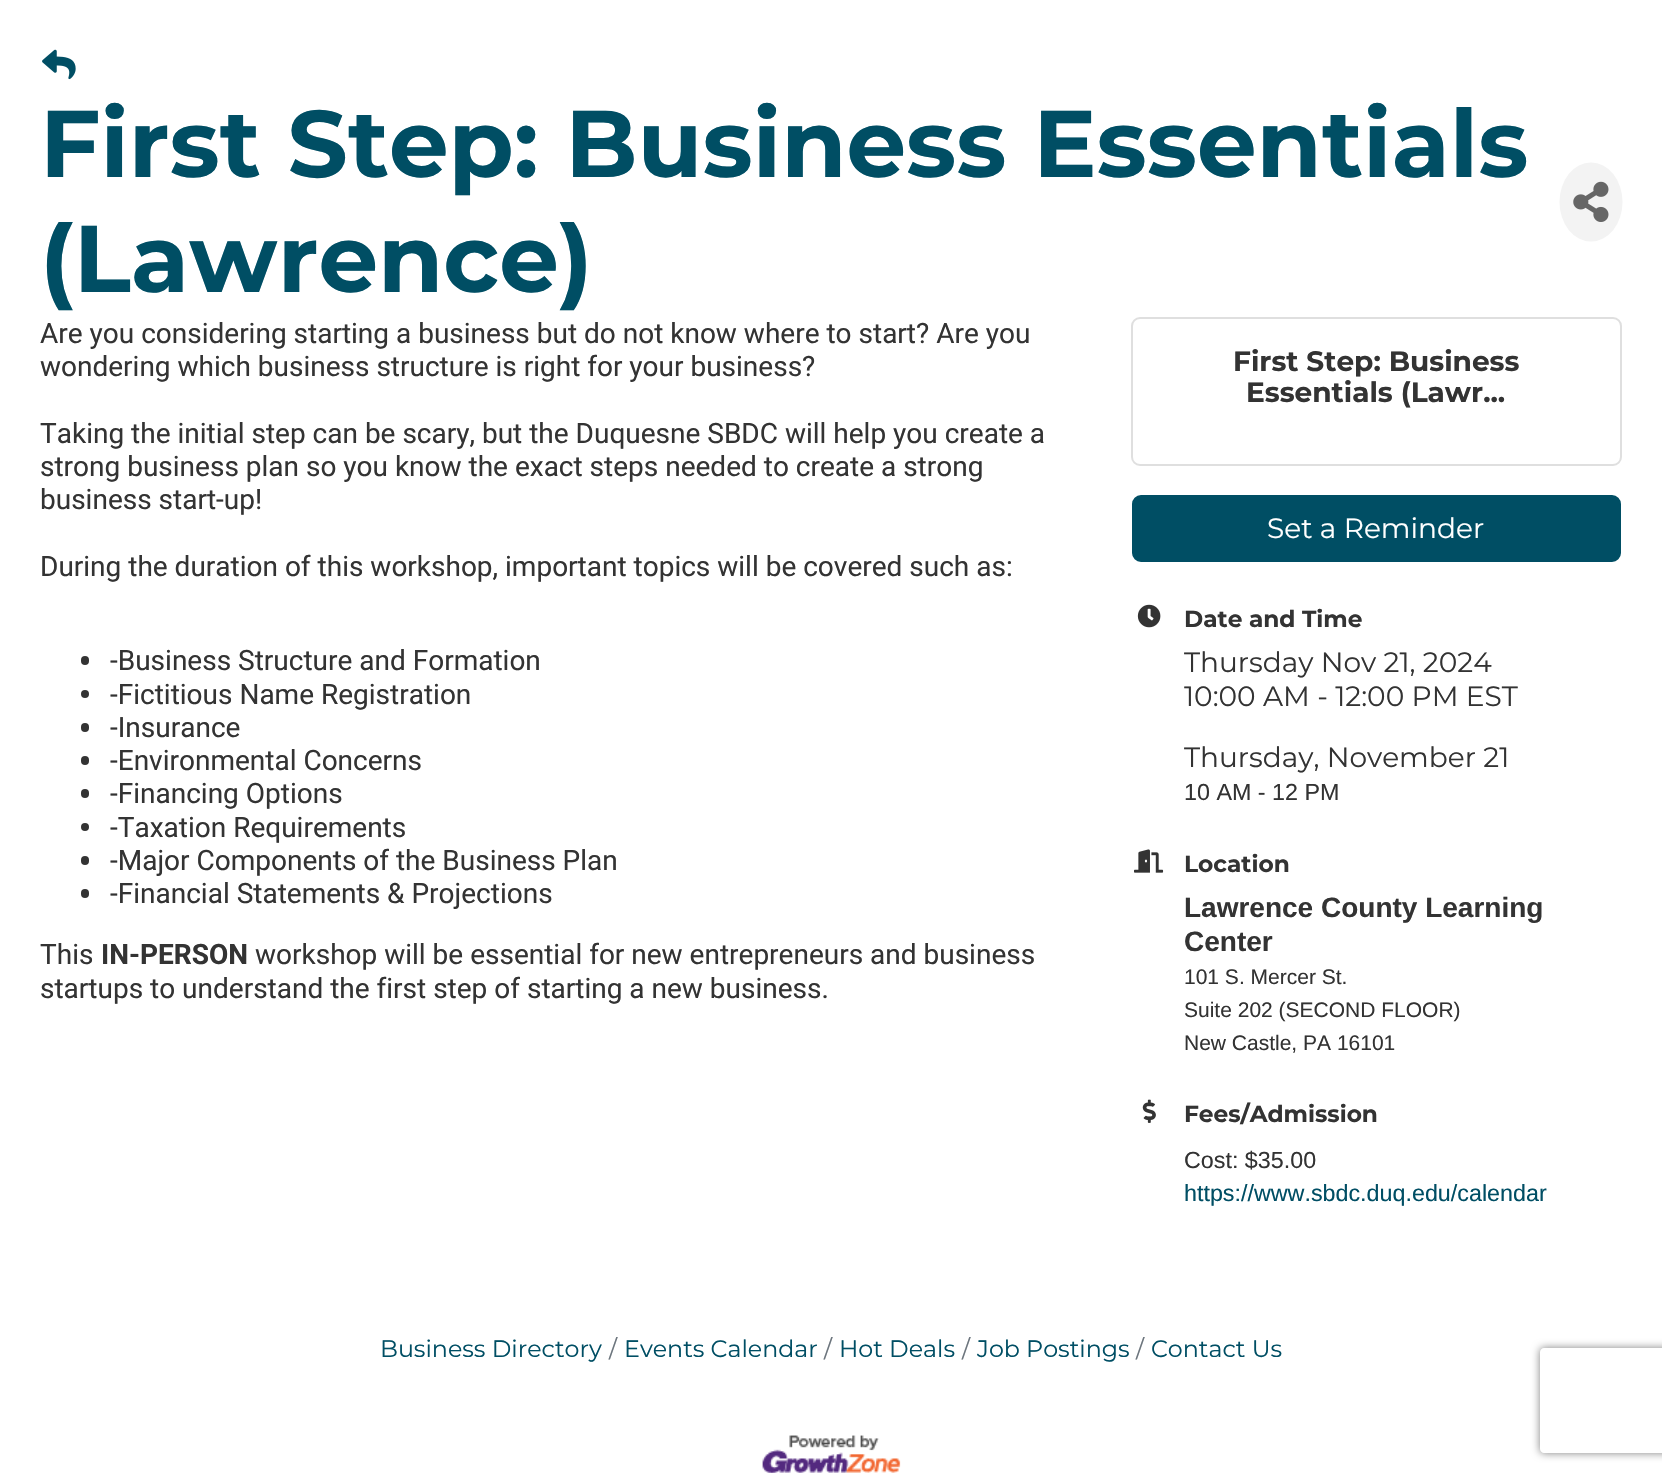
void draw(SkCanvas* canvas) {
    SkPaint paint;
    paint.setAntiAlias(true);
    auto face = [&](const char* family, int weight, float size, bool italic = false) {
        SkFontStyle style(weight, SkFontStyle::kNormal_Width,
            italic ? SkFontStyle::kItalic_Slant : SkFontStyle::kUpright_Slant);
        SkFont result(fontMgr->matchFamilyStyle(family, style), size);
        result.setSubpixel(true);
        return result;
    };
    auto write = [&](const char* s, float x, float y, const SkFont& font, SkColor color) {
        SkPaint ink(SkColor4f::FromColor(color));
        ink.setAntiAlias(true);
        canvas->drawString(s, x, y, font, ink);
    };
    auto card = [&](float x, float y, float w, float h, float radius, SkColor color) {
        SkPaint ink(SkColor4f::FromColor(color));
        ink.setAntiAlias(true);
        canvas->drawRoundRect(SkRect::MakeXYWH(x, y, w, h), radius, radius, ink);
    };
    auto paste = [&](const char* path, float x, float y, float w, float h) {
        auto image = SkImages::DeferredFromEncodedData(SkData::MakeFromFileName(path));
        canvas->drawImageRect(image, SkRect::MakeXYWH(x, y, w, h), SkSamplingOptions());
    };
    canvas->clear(SK_ColorWHITE);
    paste("pic1.png", 42, 49, 34, 31);
    auto kFont1 = face("Montserrat", 700, 94.5f);
    write("First Step: Business Essentials", 40, 177, kFont1, SkColorSetRGB(0, 78, 100));
    write("(Lawrence)", 40, 292, kFont1, SkColorSetRGB(0, 78, 100));
    paint.setColor(SkColorSetRGB(243, 243, 243));
    canvas->drawOval(SkRect::MakeXYWH(1559.5f, 162.5f, 63, 79), paint);
    paste("pic2.png", 1573, 181, 36, 41);
    auto kFont2 = face("Roboto", 400, 28);
    write("Are you considering starting a business but do not know where to start? Are you", 40, 343, kFont2, SkColorSetRGB(51, 51, 51));
    write("wondering which business structure is right for your business?", 40, 376, kFont2, SkColorSetRGB(51, 51, 51));
    write("Taking the initial step can be scary, but the Duquesne SBDC will help you create a", 40, 443, kFont2, SkColorSetRGB(51, 51, 51));
    write("strong business plan so you know the exact steps needed to create a strong", 40, 476, kFont2, SkColorSetRGB(51, 51, 51));
    write("business start-up!", 40, 509, kFont2, SkColorSetRGB(51, 51, 51));
    write("During the duration of this workshop, important topics will be covered such as:", 40, 576, kFont2, SkColorSetRGB(51, 51, 51));
    card(81, 656, 8, 9, 4, SkColorSetRGB(51, 51, 51));
    write("-Business Structure and Formation", 110, 670, kFont2, SkColorSetRGB(51, 51, 51));
    paint.setColor(SkColorSetRGB(51, 51, 51));
    canvas->drawCircle(85, 694, 4, paint);
    write("-Fictitious Name Registration", 110, 704, kFont2, SkColorSetRGB(51, 51, 51));
    card(81, 723, 8, 9, 4, SkColorSetRGB(51, 51, 51));
    write("-Insurance", 110, 737, kFont2, SkColorSetRGB(51, 51, 51));
    card(81, 756, 8, 9, 4, SkColorSetRGB(51, 51, 51));
    write("-Environmental Concerns", 110, 770, kFont2, SkColorSetRGB(51, 51, 51));
    card(81, 789, 8, 9, 4, SkColorSetRGB(51, 51, 51));
    write("-Financing Options", 110, 803, kFont2, SkColorSetRGB(51, 51, 51));
    canvas->drawCircle(85, 827, 4, paint);
    write("-Taxation Requirements", 110, 837, kFont2, SkColorSetRGB(51, 51, 51));
    card(81, 856, 8, 9, 4, SkColorSetRGB(51, 51, 51));
    write("-Major Components of the Business Plan", 110, 870, kFont2, SkColorSetRGB(51, 51, 51));
    card(81, 889, 8, 9, 4, SkColorSetRGB(51, 51, 51));
    write("-Financial Statements & Projections", 110, 903, kFont2, SkColorSetRGB(51, 51, 51));
    write("This", 40, 964, kFont2, SkColorSetRGB(51, 51, 51));
    auto kFont3 = face("Roboto", 700, 28);
    write("IN-PERSON", 101, 964, kFont3, SkColorSetRGB(51, 51, 51));
    write("workshop will be essential for new entrepreneurs and business", 255, 964, kFont2, SkColorSetRGB(51, 51, 51));
    write("startups to understand the first step of starting a new business.", 40, 998, kFont2, SkColorSetRGB(51, 51, 51));
    paint.setStyle(SkPaint::kStroke_Style);
    paint.setStrokeWidth(2);
    paint.setColor(SkColorSetRGB(223, 223, 223));
    canvas->drawRoundRect(SkRect::MakeXYWH(1132, 318, 489, 147), 8, 8, paint);
    auto kFont4 = face("Montserrat", 700, 28);
    write("First Step: Business", 1233, 371, kFont4, SkColorSetRGB(51, 51, 51));
    write("Essentials (Lawr...", 1246, 402, kFont4, SkColorSetRGB(51, 51, 51));
    paint.setStyle(SkPaint::kFill_Style);
    paint.setColor(SkColorSetRGB(0, 78, 100));
    canvas->drawRoundRect(SkRect::MakeXYWH(1133, 496, 487, 65), 8, 8, paint);
    paint.setStyle(SkPaint::kStroke_Style);
    canvas->drawRoundRect(SkRect::MakeXYWH(1133, 496, 487, 65), 8, 8, paint);
    auto kFont5 = face("Montserrat", 400, 28);
    write("Set a Reminder", 1267, 538, kFont5, SK_ColorWHITE);
    paste("pic3.png", 1137, 604, 24, 24);
    auto kFont6 = face("Montserrat", 700, 23.25f);
    write("Date and Time", 1184, 627, kFont6, SkColorSetRGB(51, 51, 51));
    write("Thursday Nov 21, 2024", 1184, 672, kFont5, SkColorSetRGB(51, 51, 51));
    write("10:00 AM - 12:00 PM EST", 1184, 706, kFont5, SkColorSetRGB(51, 51, 51));
    write("Thursday, November 21", 1184, 767, kFont5, SkColorSetRGB(51, 51, 51));
    auto kFont7 = face("Liberation Sans", 400, 23.3f);
    write("10 AM - 12 PM", 1184, 800, kFont7, SkColorSetRGB(51, 51, 51));
    paste("pic4.png", 1134, 849, 30, 24);
    write("Location", 1184, 872, kFont6, SkColorSetRGB(51, 51, 51));
    auto kFont8 = face("Liberation Sans", 700, 28);
    write("Lawrence County Learning", 1184, 917, kFont8, SkColorSetRGB(51, 51, 51));
    write("Center", 1184, 951, kFont8, SkColorSetRGB(51, 51, 51));
    auto kFont9 = face("Liberation Sans", 400, 21);
    write("101 S. Mercer St.", 1184, 984, kFont9, SkColorSetRGB(51, 51, 51));
    write("Suite 202 (SECOND FLOOR)", 1184, 1017, kFont9, SkColorSetRGB(51, 51, 51));
    write("New Castle, PA 16101", 1184, 1050, kFont9, SkColorSetRGB(51, 51, 51));
    paste("pic5.png", 1142, 1099, 14, 24);
    write("Fees/Admission", 1184, 1122, kFont6, SkColorSetRGB(51, 51, 51));
    write("Cost: $35.00", 1184, 1168, kFont7, SkColorSetRGB(51, 51, 51));
    write("https://www.sbdc.duq.edu/calendar", 1184, 1201, kFont7, SkColorSetRGB(0, 78, 100));
    auto kFont10 = face("Montserrat", 400, 23.75f);
    write("Business Directory", 380, 1357, kFont10, SkColorSetRGB(0, 78, 100));
    write("/", 609, 1357, kFont10, SkColorSetRGB(108, 117, 125));
    write("Events Calendar", 624, 1357, kFont10, SkColorSetRGB(0, 78, 100));
    write("/", 824, 1357, kFont10, SkColorSetRGB(108, 117, 125));
    write("Hot Deals", 839, 1357, kFont10, SkColorSetRGB(0, 78, 100));
    write("/", 962, 1357, kFont10, SkColorSetRGB(108, 117, 125));
    write("Job Postings", 977, 1357, kFont10, SkColorSetRGB(0, 78, 100));
    write("/", 1136, 1357, kFont10, SkColorSetRGB(108, 117, 125));
    write("Contact Us", 1151, 1357, kFont10, SkColorSetRGB(0, 78, 100));
    paste("pic6.png", 762, 1435, 139, 38);
    canvas->save();
    canvas->clipPath(SkPathBuilder(SkPathFillType::kEvenOdd).moveTo(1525, 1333).lineTo(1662, 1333).lineTo(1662, 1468).lineTo(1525, 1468).close().moveTo(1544, 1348).lineTo(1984, 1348).cubicTo(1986, 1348, 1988, 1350, 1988, 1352).lineTo(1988, 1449).cubicTo(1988, 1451, 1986, 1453, 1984, 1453).lineTo(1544, 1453).cubicTo(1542, 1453, 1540, 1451, 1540, 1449).lineTo(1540, 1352).cubicTo(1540, 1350, 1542, 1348, 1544, 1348).close().detach(), true);
    paint.setStyle(SkPaint::kFill_Style);
    paint.setColor(SkColorSetRGB(128, 128, 128));
    paint.setMaskFilter(SkMaskFilter::MakeBlur(kNormal_SkBlurStyle, 4.5f));
    canvas->drawRoundRect(SkRect::MakeXYWH(1540, 1348, 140, 105), 4, 4, paint);
    paint.setMaskFilter(nullptr);
    canvas->restore();
}
